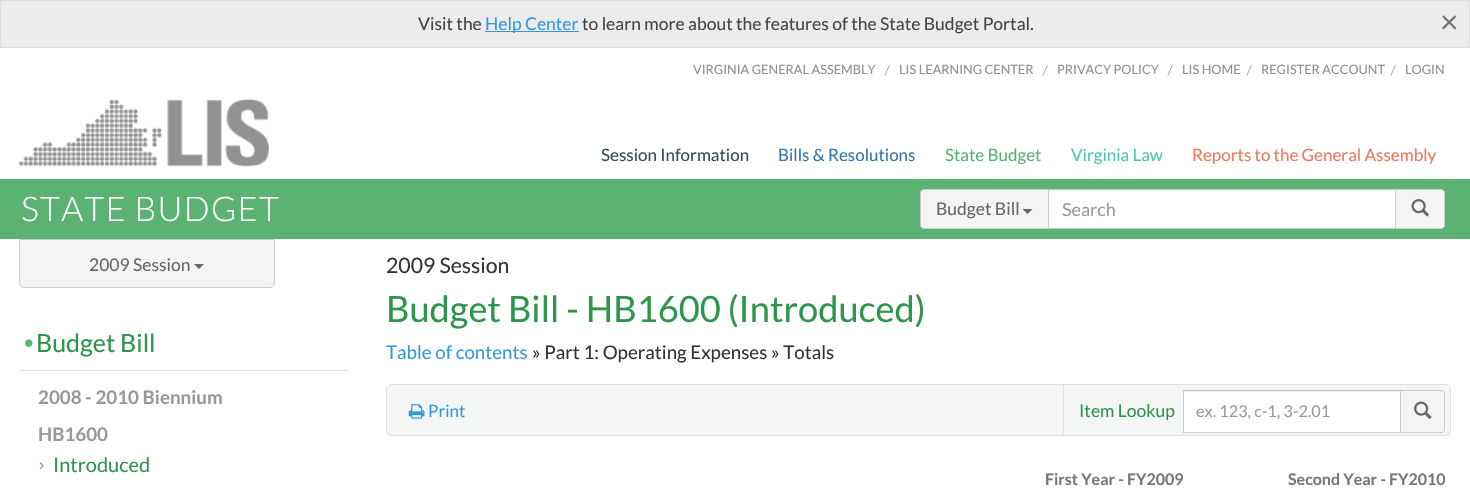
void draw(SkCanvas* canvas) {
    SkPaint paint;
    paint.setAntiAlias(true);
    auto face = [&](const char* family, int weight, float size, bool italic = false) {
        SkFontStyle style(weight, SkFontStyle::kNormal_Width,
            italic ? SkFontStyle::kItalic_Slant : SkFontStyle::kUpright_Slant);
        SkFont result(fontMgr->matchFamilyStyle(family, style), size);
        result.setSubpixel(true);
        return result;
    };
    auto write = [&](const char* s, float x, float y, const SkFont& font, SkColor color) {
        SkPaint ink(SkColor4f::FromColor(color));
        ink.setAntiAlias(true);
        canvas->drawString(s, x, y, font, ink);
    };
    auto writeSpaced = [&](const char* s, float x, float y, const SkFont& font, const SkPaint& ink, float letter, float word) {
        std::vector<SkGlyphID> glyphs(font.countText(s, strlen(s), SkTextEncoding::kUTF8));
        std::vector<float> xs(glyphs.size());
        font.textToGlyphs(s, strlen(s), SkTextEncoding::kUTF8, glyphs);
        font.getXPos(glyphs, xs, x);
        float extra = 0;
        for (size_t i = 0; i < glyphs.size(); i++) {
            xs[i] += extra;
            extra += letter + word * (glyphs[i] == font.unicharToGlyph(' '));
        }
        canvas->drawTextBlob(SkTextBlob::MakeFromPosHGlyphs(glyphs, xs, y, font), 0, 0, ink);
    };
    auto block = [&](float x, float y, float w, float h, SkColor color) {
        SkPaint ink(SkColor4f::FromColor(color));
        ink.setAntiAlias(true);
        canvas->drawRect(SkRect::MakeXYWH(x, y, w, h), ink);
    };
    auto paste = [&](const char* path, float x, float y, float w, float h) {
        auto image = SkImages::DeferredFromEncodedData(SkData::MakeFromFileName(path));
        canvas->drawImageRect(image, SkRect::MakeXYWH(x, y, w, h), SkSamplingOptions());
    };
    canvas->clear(SK_ColorWHITE);
    paint.setColor(SkColorSetRGB(236, 236, 236));
    canvas->drawRect(SkRect::MakeXYWH(0.5f, 0.5f, 1469, 47), paint);
    paint.setStyle(SkPaint::kStroke_Style);
    paint.setStrokeWidth(1);
    paint.setColor(SkColorSetRGB(217, 224, 218));
    canvas->drawRect(SkRect::MakeXYWH(0.5f, 0.5f, 1469, 47), paint);
    auto kFont1 = face("Lato", 400, 17.5f);
    write("Visit the", 418, 30, kFont1, SkColorSetRGB(68, 68, 68));
    block(485, 31, 94, 1, SkColorSetRGB(52, 152, 219));
    write("Help Center", 485, 30, kFont1, SkColorSetRGB(52, 152, 219));
    write("to learn more about the features of the State Budget Portal.", 582, 30, kFont1, SkColorSetRGB(68, 68, 68));
    auto kFont2 = face("Lato", 400, 32);
    write("×", 1440, 33, kFont2, SkColorSetRGB(119, 119, 119));
    auto kFont3 = face("Lato", 400, 12.75f);
    write("VIRGINIA GENERAL ASSEMBLY", 693, 74, kFont3, SkColorSetRGB(143, 144, 144));
    auto kFont4 = face("PT Serif", 400, 12.75f);
    write("/", 885, 74, kFont4, SkColorSetRGB(143, 144, 144));
    write("LIS LEARNING CENTER", 899, 74, kFont3, SkColorSetRGB(143, 144, 144));
    write("/", 1043, 74, kFont4, SkColorSetRGB(143, 144, 144));
    write("PRIVACY POLICY", 1057, 74, kFont3, SkColorSetRGB(143, 144, 144));
    write("/", 1168, 74, kFont4, SkColorSetRGB(143, 144, 144));
    write("LIS HOME", 1182, 74, kFont3, SkColorSetRGB(143, 144, 144));
    write("/", 1247, 74, kFont4, SkColorSetRGB(143, 144, 144));
    write("REGISTER ACCOUNT", 1261, 74, kFont3, SkColorSetRGB(143, 144, 144));
    write("/", 1391, 74, kFont4, SkColorSetRGB(143, 144, 144));
    write("LOGIN", 1405, 74, kFont3, SkColorSetRGB(143, 144, 144));
    paste("pic1.png", 18, 98, 251, 69);
    auto kFont5 = face("Lato", 400, 17);
    write("Session Information", 601, 161, kFont5, SkColorSetRGB(52, 73, 94));
    write("Bills & Resolutions", 778, 161, kFont5, SkColorSetRGB(55, 116, 172));
    write("State Budget", 945, 161, kFont5, SkColorSetRGB(87, 179, 111));
    write("Virginia Law", 1071, 161, kFont5, SkColorSetRGB(79, 198, 172));
    write("Reports to the General Assembly", 1192, 161, kFont5, SkColorSetRGB(239, 121, 90));
    block(0, 179, 1470, 60, SkColorSetRGB(91, 178, 114));
    auto kFont6 = face("Lato", 300, 34);
    paint.setStyle(SkPaint::kFill_Style);
    paint.setColor(SK_ColorWHITE);
    writeSpaced("STATE BUDGET", 21, 221, kFont6, paint, 1.25f, 0);
    block(1049, 191, 346, 37, SK_ColorWHITE);
    block(1049, 190, 346, 1, SkColorSetRGB(236, 236, 236));
    paint.setStyle(SkPaint::kStroke_Style);
    paint.setColor(SkColorSetRGB(204, 204, 204));
    canvas->drawRect(SkRect::MakeXYWH(1048.5f, 189.5f, 347, 39), paint);
    paint.setStyle(SkPaint::kFill_Style);
    paint.setColor(SkColorSetRGB(243, 245, 245));
    canvas->drawPath(SkPathBuilder().moveTo(924, 189.5f).lineTo(1048.5f, 189.5f).lineTo(1048.5f, 228.5f).lineTo(924, 228.5f).cubicTo(922, 228.5f, 920.5f, 227, 920.5f, 225).lineTo(920.5f, 193).cubicTo(920.5f, 191, 922, 189.5f, 924, 189.5f).close().detach(), paint);
    paint.setStyle(SkPaint::kStroke_Style);
    paint.setColor(SkColorSetRGB(204, 204, 204));
    canvas->drawPath(SkPathBuilder().moveTo(924, 189.5f).lineTo(1048.5f, 189.5f).lineTo(1048.5f, 228.5f).lineTo(924, 228.5f).cubicTo(922, 228.5f, 920.5f, 227, 920.5f, 225).lineTo(920.5f, 193).cubicTo(920.5f, 191, 922, 189.5f, 924, 189.5f).close().detach(), paint);
    write("Budget Bill", 936, 215, kFont1, SkColorSetRGB(102, 102, 102));
    paint.setStyle(SkPaint::kFill_Style);
    paint.setColor(SkColorSetRGB(102, 102, 102));
    canvas->drawPath(SkPathBuilder().moveTo(1022.5f, 209).lineTo(1032.5f, 209).lineTo(1027.5f, 214).close().detach(), paint);
    auto kFont7 = face("Lato", 400, 18);
    write("Search", 1062, 216, kFont7, SkColorSetRGB(153, 153, 153));
    paint.setColor(SkColorSetRGB(243, 245, 245));
    canvas->drawPath(SkPathBuilder().moveTo(1395.5f, 189.5f).lineTo(1441, 189.5f).cubicTo(1443, 189.5f, 1444.5f, 191, 1444.5f, 193).lineTo(1444.5f, 225).cubicTo(1444.5f, 227, 1443, 228.5f, 1441, 228.5f).lineTo(1395.5f, 228.5f).close().detach(), paint);
    paint.setStyle(SkPaint::kStroke_Style);
    paint.setColor(SkColorSetRGB(204, 204, 204));
    canvas->drawPath(SkPathBuilder().moveTo(1395.5f, 189.5f).lineTo(1441, 189.5f).cubicTo(1443, 189.5f, 1444.5f, 191, 1444.5f, 193).lineTo(1444.5f, 225).cubicTo(1444.5f, 227, 1443, 228.5f, 1441, 228.5f).lineTo(1395.5f, 228.5f).close().detach(), paint);
    paste("pic2.png", 1411, 199, 18, 18);
    paint.setStyle(SkPaint::kFill_Style);
    paint.setColor(SkColorSetRGB(243, 245, 245));
    canvas->drawPath(SkPathBuilder().moveTo(19.5f, 239.5f).lineTo(274.5f, 239.5f).lineTo(274.5f, 283).cubicTo(274.5f, 285.5f, 272.5f, 287.5f, 270, 287.5f).lineTo(24, 287.5f).cubicTo(21.5f, 287.5f, 19.5f, 285.5f, 19.5f, 283).close().detach(), paint);
    paint.setStyle(SkPaint::kStroke_Style);
    paint.setColor(SkColorSetRGB(204, 204, 204));
    canvas->drawPath(SkPathBuilder().moveTo(19.5f, 239.5f).lineTo(274.5f, 239.5f).lineTo(274.5f, 283).cubicTo(274.5f, 285.5f, 272.5f, 287.5f, 270, 287.5f).lineTo(24, 287.5f).cubicTo(21.5f, 287.5f, 19.5f, 285.5f, 19.5f, 283).close().detach(), paint);
    write("2009 Session", 89, 271, kFont1, SkColorSetRGB(102, 102, 102));
    paint.setStyle(SkPaint::kFill_Style);
    paint.setColor(SkColorSetRGB(102, 102, 102));
    canvas->drawPath(SkPathBuilder().moveTo(194, 264).lineTo(204, 264).lineTo(199, 269).close().detach(), paint);
    paste("pic3.png", 25, 339, 8, 8);
    auto kFont8 = face("Lato", 400, 25);
    write("Budget Bill", 36, 352, kFont8, SkColorSetRGB(46, 149, 76));
    block(19, 370, 330, 1, SkColorSetRGB(221, 221, 221));
    auto kFont9 = face("Lato", 700, 18.75f);
    write("2008 - 2010 Biennium", 38, 404, kFont9, SkColorSetRGB(153, 153, 153));
    write("HB1600", 38, 441, kFont9, SkColorSetRGB(153, 153, 153));
    paste("pic4.png", 39, 462, 5, 7);
    auto kFont10 = face("Lato", 400, 20);
    write("Introduced", 53, 472, kFont10, SkColorSetRGB(46, 149, 76));
    auto kFont11 = face("Lato", 400, 21.25f);
    write("2009 Session", 386, 273, kFont11, SkColorSetRGB(51, 51, 51));
    auto kFont12 = face("Lato", 400, 36.25f);
    write("Budget Bill - HB1600 (Introduced)", 386, 322, kFont12, SkColorSetRGB(46, 149, 76));
    auto kFont13 = face("Lato", 400, 18.75f);
    write("Table of contents", 386, 359, kFont13, SkColorSetRGB(52, 152, 219));
    write("» Part 1: Operating Expenses » Totals", 532, 359, kFont13, SkColorSetRGB(51, 51, 51));
    paint.setColor(SkColorSetRGB(244, 245, 245));
    canvas->drawRoundRect(SkRect::MakeXYWH(386.5f, 384.5f, 1064, 51), 4.5f, 4.5f, paint);
    paint.setStyle(SkPaint::kStroke_Style);
    paint.setColor(SkColorSetRGB(222, 226, 227));
    canvas->drawRoundRect(SkRect::MakeXYWH(386.5f, 384.5f, 1064, 51), 4.5f, 4.5f, paint);
    paste("pic5.png", 408, 404, 17, 15);
    write("Print", 428, 417, kFont5, SkColorSetRGB(52, 152, 219));
    block(1063, 385, 1, 50, SkColorSetRGB(222, 226, 227));
    write("Item Lookup", 1079, 417, kFont1, SkColorSetRGB(46, 149, 76));
    block(1184, 392, 216, 40, SK_ColorWHITE);
    block(1184, 391, 216, 1, SkColorSetRGB(236, 236, 236));
    paint.setColor(SkColorSetRGB(204, 204, 204));
    canvas->drawRect(SkRect::MakeXYWH(1183.5f, 390.5f, 217, 42), paint);
    auto kFont14 = face("Lato", 400, 16.25f);
    write("ex. 123, c-1, 3-2.01", 1196, 417, kFont14, SkColorSetRGB(153, 153, 153));
    paint.setStyle(SkPaint::kFill_Style);
    paint.setColor(SkColorSetRGB(243, 245, 245));
    canvas->drawPath(SkPathBuilder().moveTo(1400.5f, 390.5f).lineTo(1441, 390.5f).cubicTo(1443, 390.5f, 1444.5f, 392, 1444.5f, 394).lineTo(1444.5f, 429).cubicTo(1444.5f, 431, 1443, 432.5f, 1441, 432.5f).lineTo(1400.5f, 432.5f).close().detach(), paint);
    paint.setStyle(SkPaint::kStroke_Style);
    paint.setColor(SkColorSetRGB(204, 204, 204));
    canvas->drawPath(SkPathBuilder().moveTo(1400.5f, 390.5f).lineTo(1441, 390.5f).cubicTo(1443, 390.5f, 1444.5f, 392, 1444.5f, 394).lineTo(1444.5f, 429).cubicTo(1444.5f, 431, 1443, 432.5f, 1441, 432.5f).lineTo(1400.5f, 432.5f).close().detach(), paint);
    paste("pic6.png", 1414, 401, 18, 18);
    auto kFont15 = face("Lato", 700, 16);
    write("First Year - FY2009", 1045, 485, kFont15, SkColorSetRGB(119, 119, 119));
    write("Second Year - FY2010", 1288, 485, kFont15, SkColorSetRGB(119, 119, 119));
}
